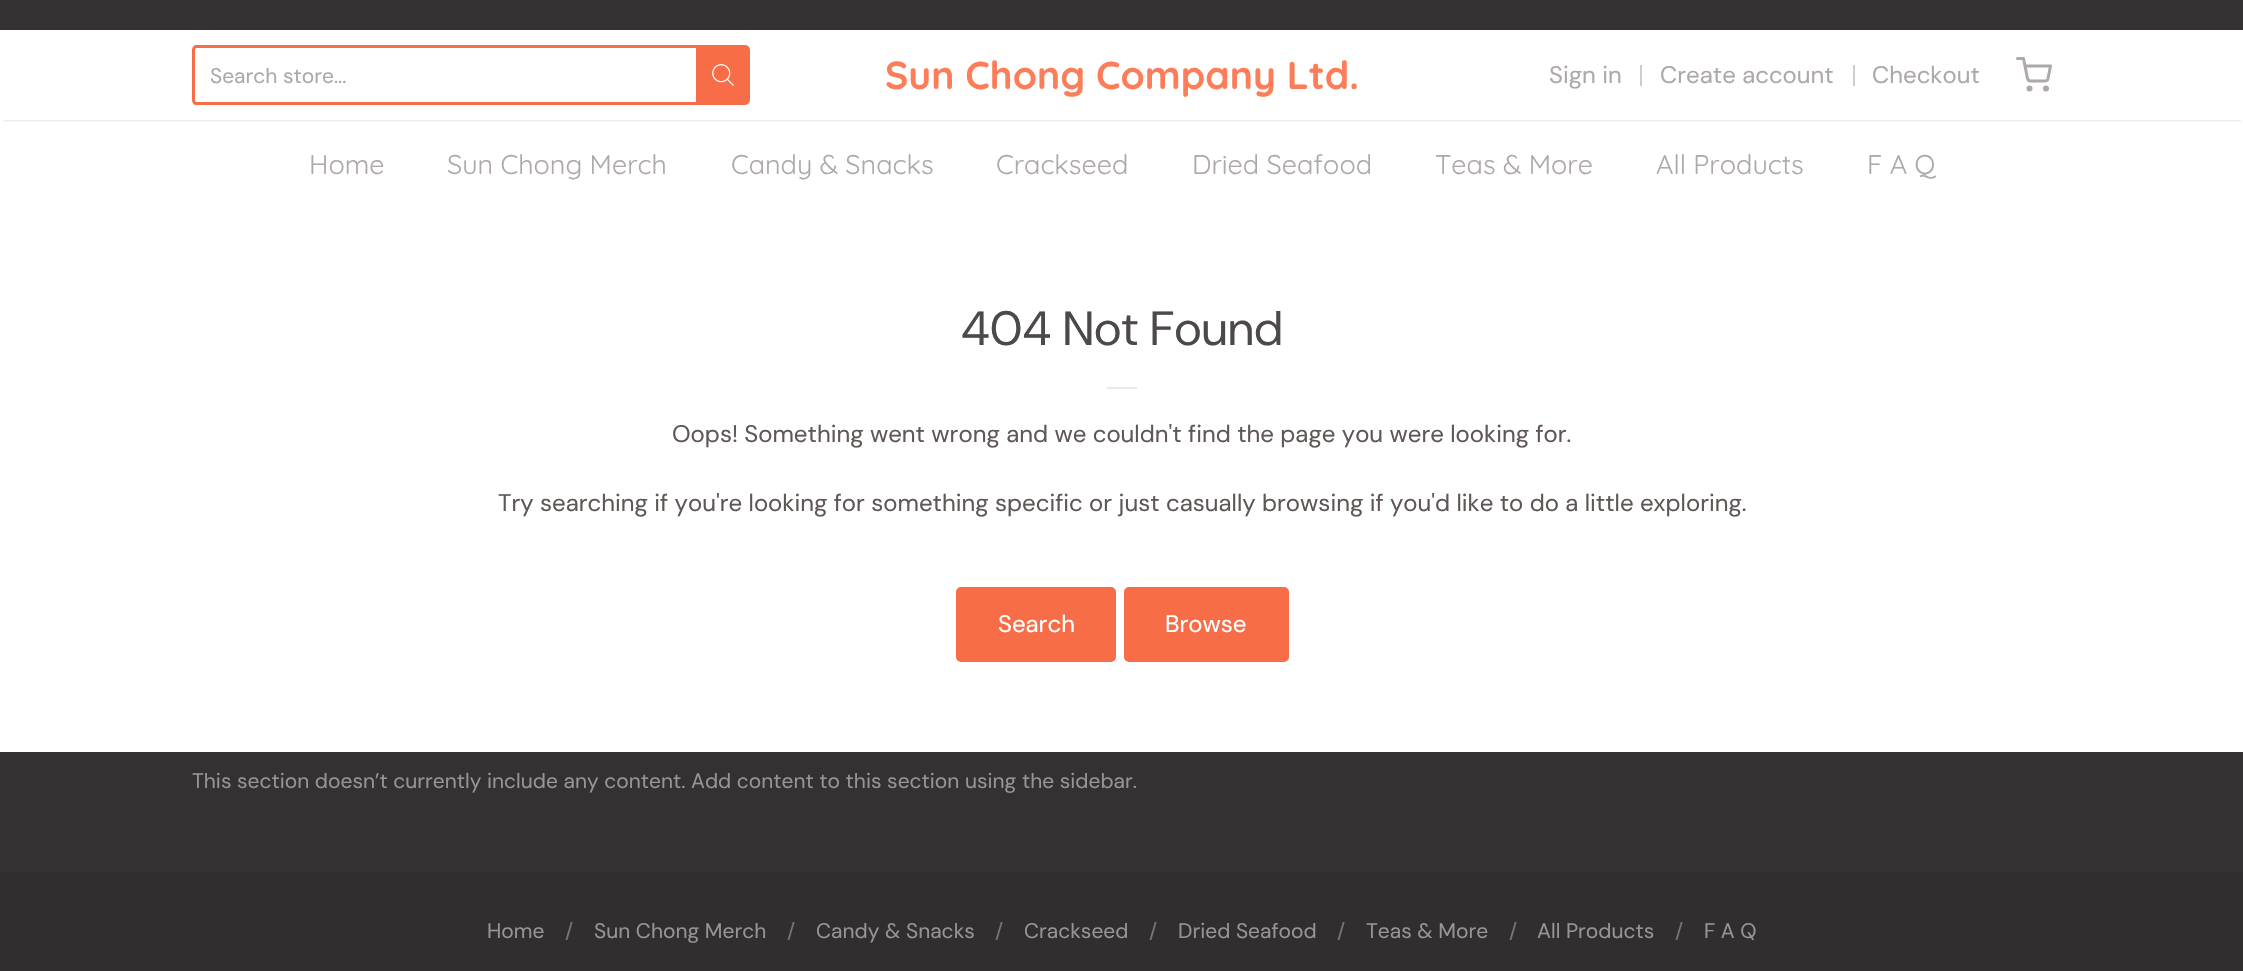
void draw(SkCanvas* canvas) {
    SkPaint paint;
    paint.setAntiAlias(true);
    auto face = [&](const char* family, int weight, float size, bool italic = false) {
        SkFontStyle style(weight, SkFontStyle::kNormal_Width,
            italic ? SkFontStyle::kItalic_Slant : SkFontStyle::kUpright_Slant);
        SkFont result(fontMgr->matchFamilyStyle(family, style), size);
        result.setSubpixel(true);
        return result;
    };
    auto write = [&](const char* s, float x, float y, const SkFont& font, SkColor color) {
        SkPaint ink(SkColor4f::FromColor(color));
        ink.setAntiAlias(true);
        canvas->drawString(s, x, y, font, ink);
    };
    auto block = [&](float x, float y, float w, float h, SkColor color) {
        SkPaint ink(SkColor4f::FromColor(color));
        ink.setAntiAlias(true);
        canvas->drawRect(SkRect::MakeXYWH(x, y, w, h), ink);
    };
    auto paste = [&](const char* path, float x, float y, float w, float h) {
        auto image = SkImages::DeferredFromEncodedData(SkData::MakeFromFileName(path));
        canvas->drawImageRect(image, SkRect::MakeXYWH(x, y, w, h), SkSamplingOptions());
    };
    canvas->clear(SK_ColorWHITE);
    block(0, 0, 2243, 30, SkColorSetRGB(51, 49, 50));
    canvas->save();
    canvas->clipRect(SkRect::MakeXYWH(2, 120, 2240, 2));
    paint.setColor(SkColorSetARGB(51, 0, 0, 0));
    paint.setMaskFilter(SkMaskFilter::MakeBlur(kNormal_SkBlurStyle, 1.5f));
    canvas->drawRect(SkRect::MakeXYWH(3, 36, 2238, 84), paint);
    paint.setMaskFilter(nullptr);
    canvas->restore();
    paint.setColor(SkColorSetRGB(246, 109, 71));
    canvas->drawPath(SkPathBuilder(SkPathFillType::kEvenOdd).moveTo(196, 45).lineTo(696, 45).lineTo(696, 105).lineTo(196, 105).cubicTo(194, 105, 192, 103, 192, 100).lineTo(192, 50).cubicTo(192, 47, 194, 45, 196, 45).close().moveTo(196, 48).lineTo(696, 48).lineTo(696, 102).lineTo(196, 102).cubicTo(196, 102, 195, 101, 195, 100).lineTo(195, 49).close().detach(), paint);
    auto kFont1 = face("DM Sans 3", 400, 21);
    write("Search store...", 210, 83, kFont1, SkColorSetRGB(174, 168, 168));
    canvas->drawPath(SkPathBuilder().moveTo(697.5f, 46.5f).lineTo(745, 46.5f).cubicTo(747, 46.5f, 748.5f, 48, 748.5f, 50).lineTo(748.5f, 100).cubicTo(748.5f, 102, 747, 103.5f, 745, 103.5f).lineTo(697.5f, 103.5f).close().detach(), paint);
    paint.setStyle(SkPaint::kStroke_Style);
    paint.setStrokeWidth(3);
    canvas->drawPath(SkPathBuilder().moveTo(697.5f, 46.5f).lineTo(745, 46.5f).cubicTo(747, 46.5f, 748.5f, 48, 748.5f, 50).lineTo(748.5f, 100).cubicTo(748.5f, 102, 747, 103.5f, 745, 103.5f).lineTo(697.5f, 103.5f).close().detach(), paint);
    paste("pic1.png", 712, 64, 22, 22);
    auto kFont2 = face("Quicksand", 700, 39);
    write("Sun Chong Company Ltd.", 885, 89, kFont2, SkColorSetRGB(254, 125, 89));
    auto kFont3 = face("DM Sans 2", 400, 24);
    write("Sign in", 1549, 83, kFont3, SkColorSetRGB(174, 168, 168));
    block(1640, 65, 2, 21, SkColorSetRGB(207, 205, 204));
    write("Create account", 1660, 83, kFont3, SkColorSetRGB(174, 168, 168));
    block(1853, 65, 2, 21, SkColorSetRGB(207, 205, 204));
    write("Checkout", 1872, 83, kFont3, SkColorSetRGB(174, 168, 168));
    paint.setStrokeCap(SkPaint::kRound_Cap);
    paint.setStrokeJoin(SkPaint::kRound_Join);
    paint.setColor(SkColorSetRGB(174, 168, 168));
    canvas->drawPath(SkPathBuilder().moveTo(2017.5f, 58.5f).lineTo(2023.5f, 58.5f).lineTo(2027.5f, 78.5f).cubicTo(2028, 80, 2029, 81, 2030.5f, 81).lineTo(2045, 81).cubicTo(2046.5f, 81, 2048, 80, 2048, 78.5f).lineTo(2050.5f, 66).lineTo(2025, 66).detach(), paint);
    paint.setStrokeCap(SkPaint::kButt_Cap);
    paint.setStrokeJoin(SkPaint::kMiter_Join);
    canvas->drawCircle(2029.5f, 88.5f, 1.5f, paint);
    canvas->drawCircle(2046, 88.5f, 1.5f, paint);
    auto kFont4 = face("Quicksand", 400, 27);
    write("Home", 309, 174, kFont4, SkColorSetRGB(174, 168, 168));
    write("Sun Chong Merch", 447, 174, kFont4, SkColorSetRGB(174, 168, 168));
    write("Candy & Snacks", 731, 174, kFont4, SkColorSetRGB(174, 168, 168));
    write("Crackseed", 996, 174, kFont4, SkColorSetRGB(174, 168, 168));
    write("Dried Seafood", 1192, 174, kFont4, SkColorSetRGB(174, 168, 168));
    write("Teas & More", 1435, 174, kFont4, SkColorSetRGB(174, 168, 168));
    write("All Products", 1656, 174, kFont4, SkColorSetRGB(174, 168, 168));
    write("F A Q", 1867, 174, kFont4, SkColorSetRGB(174, 168, 168));
    auto kFont5 = face("DM Sans", 400, 48);
    write("404 Not Found", 961, 345, kFont5, SkColorSetRGB(78, 73, 73));
    block(1107, 387, 30, 2, SkColorSetRGB(234, 232, 232));
    write("Oops! Something went wrong and we couldn't find the page you were looking for.", 672, 442, kFont3, SkColorSetRGB(95, 87, 85));
    write("Try searching if you're looking for something specific or just casually browsing if you'd like to do a little exploring.", 498, 511, kFont3, SkColorSetRGB(95, 87, 85));
    paint.setStyle(SkPaint::kFill_Style);
    paint.setColor(SkColorSetRGB(246, 109, 71));
    canvas->drawRoundRect(SkRect::MakeXYWH(957.5f, 588.5f, 157, 72), 3.5f, 3.5f, paint);
    paint.setStyle(SkPaint::kStroke_Style);
    canvas->drawRoundRect(SkRect::MakeXYWH(957.5f, 588.5f, 157, 72), 3.5f, 3.5f, paint);
    write("Search", 998, 632, kFont3, SK_ColorWHITE);
    paint.setStyle(SkPaint::kFill_Style);
    canvas->drawRoundRect(SkRect::MakeXYWH(1125.5f, 588.5f, 162, 72), 3.5f, 3.5f, paint);
    paint.setStyle(SkPaint::kStroke_Style);
    canvas->drawRoundRect(SkRect::MakeXYWH(1125.5f, 588.5f, 162, 72), 3.5f, 3.5f, paint);
    write("Browse", 1165, 632, kFont3, SK_ColorWHITE);
    block(0, 752, 2243, 120, SkColorSetRGB(51, 49, 50));
    write("This section doesn’t currently include any content. Add content to this section using the sidebar.", 192, 788, kFont1, SkColorSetRGB(153, 148, 147));
    block(0, 872, 2243, 99, SkColorSetRGB(48, 46, 47));
    write("Home", 487, 938, kFont1, SkColorSetRGB(153, 148, 147));
    write("/", 565, 938, kFont1, SkColorSetRGB(122, 117, 117));
    write("Sun Chong Merch", 594, 938, kFont1, SkColorSetRGB(153, 148, 147));
    write("/", 787, 938, kFont1, SkColorSetRGB(122, 117, 117));
    write("Candy & Snacks", 816, 938, kFont1, SkColorSetRGB(153, 148, 147));
    write("/", 995, 938, kFont1, SkColorSetRGB(122, 117, 117));
    write("Crackseed", 1024, 938, kFont1, SkColorSetRGB(153, 148, 147));
    write("/", 1149, 938, kFont1, SkColorSetRGB(122, 117, 117));
    write("Dried Seafood", 1178, 938, kFont1, SkColorSetRGB(153, 148, 147));
    write("/", 1337, 938, kFont1, SkColorSetRGB(122, 117, 117));
    write("Teas & More", 1366, 938, kFont1, SkColorSetRGB(153, 148, 147));
    write("/", 1509, 938, kFont1, SkColorSetRGB(122, 117, 117));
    write("All Products", 1537, 938, kFont1, SkColorSetRGB(153, 148, 147));
    write("/", 1675, 938, kFont1, SkColorSetRGB(122, 117, 117));
    write("F A Q", 1704, 938, kFont1, SkColorSetRGB(153, 148, 147));
}
